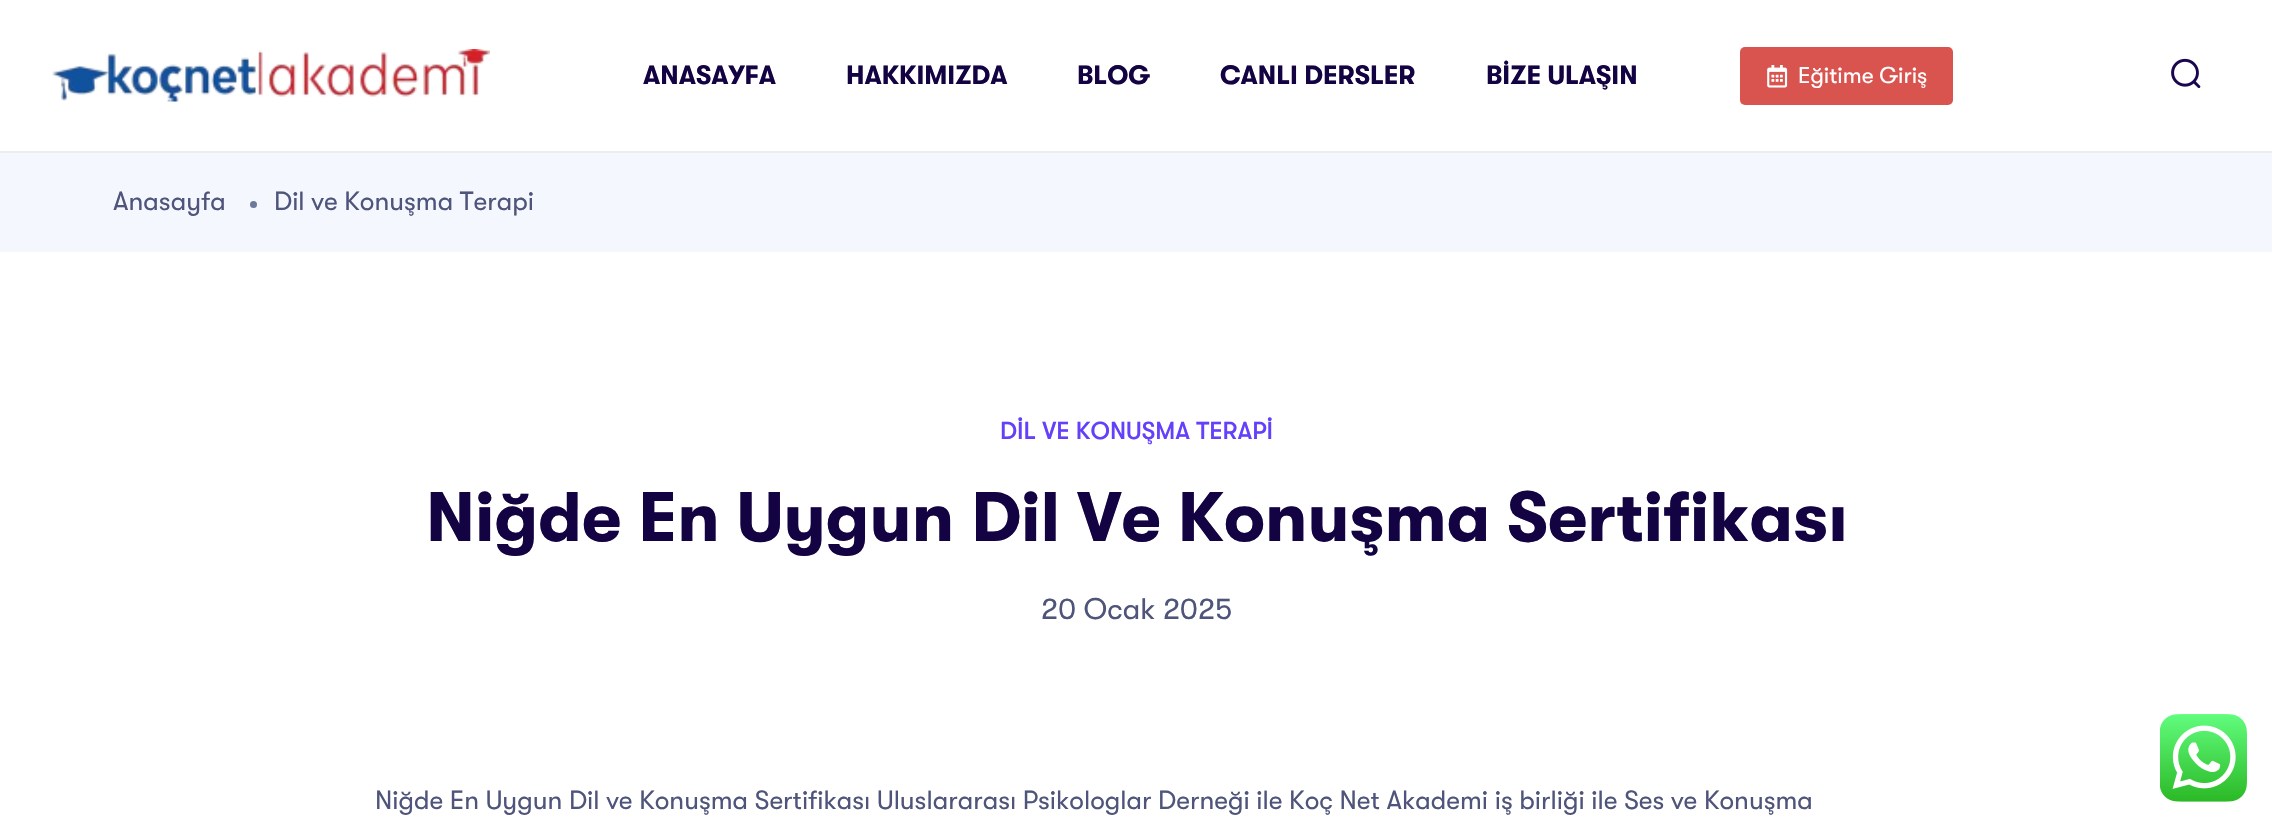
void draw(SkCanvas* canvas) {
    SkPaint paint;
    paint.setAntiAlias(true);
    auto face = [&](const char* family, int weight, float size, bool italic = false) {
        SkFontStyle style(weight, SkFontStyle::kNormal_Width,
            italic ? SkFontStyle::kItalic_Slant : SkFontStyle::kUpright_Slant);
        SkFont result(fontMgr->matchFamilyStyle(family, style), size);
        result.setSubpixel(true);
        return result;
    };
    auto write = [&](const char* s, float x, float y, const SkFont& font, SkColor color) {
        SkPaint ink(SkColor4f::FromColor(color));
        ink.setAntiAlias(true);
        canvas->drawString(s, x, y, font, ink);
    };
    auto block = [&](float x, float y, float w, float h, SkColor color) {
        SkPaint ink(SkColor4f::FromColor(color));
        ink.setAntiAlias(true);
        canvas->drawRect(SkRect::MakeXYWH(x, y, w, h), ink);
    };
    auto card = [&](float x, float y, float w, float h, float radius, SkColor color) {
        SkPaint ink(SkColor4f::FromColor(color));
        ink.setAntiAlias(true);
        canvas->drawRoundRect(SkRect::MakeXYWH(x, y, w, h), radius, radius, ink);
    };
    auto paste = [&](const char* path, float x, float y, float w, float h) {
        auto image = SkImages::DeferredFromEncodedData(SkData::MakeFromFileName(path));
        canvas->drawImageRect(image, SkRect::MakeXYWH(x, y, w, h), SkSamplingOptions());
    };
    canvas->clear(SK_ColorWHITE);
    block(0, 151, 2272, 2, SkColorSetRGB(237, 237, 237));
    paste("pic1.png", 52, 49, 438, 53);
    auto kFont1 = face("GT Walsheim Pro", 700, 26.25f);
    write("ANASAYFA", 643, 84, kFont1, SkColorSetRGB(20, 3, 66));
    write("HAKKIMIZDA", 846, 84, kFont1, SkColorSetRGB(20, 3, 66));
    write("BLOG", 1077, 84, kFont1, SkColorSetRGB(20, 3, 66));
    write("CANLI DERSLER", 1220, 84, kFont1, SkColorSetRGB(20, 3, 66));
    write("BİZE ULAŞIN", 1486, 84, kFont1, SkColorSetRGB(20, 3, 66));
    card(1740, 47, 213, 58, 5, SkColorSetRGB(217, 83, 79));
    paste("pic2.png", 1767, 65, 21, 23);
    auto kFont2 = face("GT Walsheim Pro", 400, 22.75f);
    write("Eğitime Giriş", 1798, 83, kFont2, SK_ColorWHITE);
    paste("pic3.png", 2171, 58, 30, 31);
    block(0, 153, 2272, 99, SkColorSetRGB(245, 247, 254));
    auto kFont3 = face("GT Walsheim Pro", 400, 26.25f);
    write("Anasayfa", 113, 210, kFont3, SkColorSetRGB(79, 84, 123));
    paint.setColor(SkColorSetRGB(106, 122, 153));
    canvas->drawCircle(253.5f, 204.5f, 3.5f, paint);
    write("Dil ve Konuşma Terapi", 274, 210, kFont3, SkColorSetRGB(79, 84, 123));
    auto kFont4 = face("GT Walsheim Pro", 500, 24.5f);
    write("DİL VE KONUŞMA TERAPİ", 1000, 439, kFont4, SkColorSetRGB(100, 64, 251));
    auto kFont5 = face("GT Walsheim Pro", 700, 70);
    write("Niğde En Uygun Dil Ve Konuşma Sertifikası", 426, 541, kFont5, SkColorSetRGB(20, 3, 66));
    auto kFont6 = face("GT Walsheim Pro", 400, 29.75f);
    write("20 Ocak 2025", 1041, 619, kFont6, SkColorSetRGB(79, 84, 123));
    write("Niğde En Uygun Dil ve Konuşma Sertifikası Uluslararası Psikologlar Derneği ile Koç Net Akademi iş birliği ile Ses ve Konuşma", 375, 809, kFont3, SkColorSetRGB(79, 84, 123));
    paste("pic4.png", 2160, 714, 87, 88);
}
